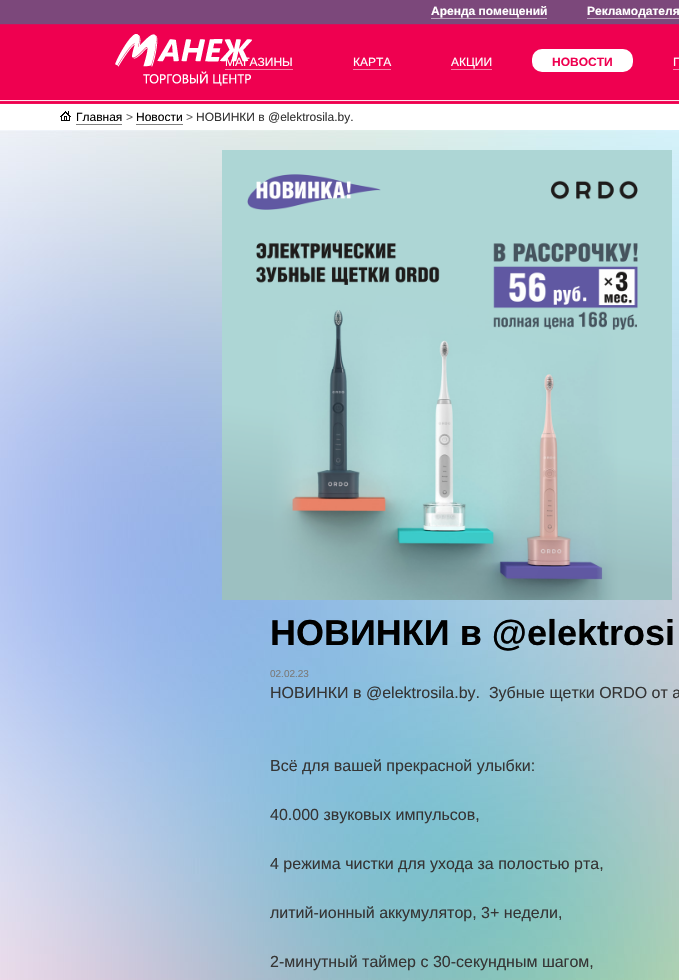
void draw(SkCanvas* canvas) {
    SkPaint paint;
    paint.setAntiAlias(true);
    auto face = [&](const char* family, int weight, float size, bool italic = false) {
        SkFontStyle style(weight, SkFontStyle::kNormal_Width,
            italic ? SkFontStyle::kItalic_Slant : SkFontStyle::kUpright_Slant);
        SkFont result(fontMgr->matchFamilyStyle(family, style), size);
        result.setSubpixel(true);
        return result;
    };
    auto write = [&](const char* s, float x, float y, const SkFont& font, SkColor color) {
        SkPaint ink(SkColor4f::FromColor(color));
        ink.setAntiAlias(true);
        canvas->drawString(s, x, y, font, ink);
    };
    auto block = [&](float x, float y, float w, float h, SkColor color) {
        SkPaint ink(SkColor4f::FromColor(color));
        ink.setAntiAlias(true);
        canvas->drawRect(SkRect::MakeXYWH(x, y, w, h), ink);
    };
    auto card = [&](float x, float y, float w, float h, float radius, SkColor color) {
        SkPaint ink(SkColor4f::FromColor(color));
        ink.setAntiAlias(true);
        canvas->drawRoundRect(SkRect::MakeXYWH(x, y, w, h), radius, radius, ink);
    };
    auto paste = [&](const char* path, float x, float y, float w, float h) {
        auto image = SkImages::DeferredFromEncodedData(SkData::MakeFromFileName(path));
        canvas->drawImageRect(image, SkRect::MakeXYWH(x, y, w, h), SkSamplingOptions());
    };
    canvas->clear(SK_ColorWHITE);
    block(0, 0, 679, 24, SkColorSetRGB(124, 72, 123));
    auto kFont1 = face("Liberation Sans", 700, 12);
    write("Аренда помещений", 431, 15, kFont1, SK_ColorWHITE);
    block(431, 18, 116, 1, SkColorSetRGB(190, 164, 189));
    write("Рекламодателя", 587, 15, kFont1, SK_ColorWHITE);
    block(587, 18, 92, 1, SkColorSetRGB(190, 164, 189));
    paste("pic1.png", 0, 24, 679, 80);
    paste("pic2.png", 115, 34, 137, 52);
    auto kFont2 = face("Liberation Sans", 400, 12);
    write("МАГАЗИНЫ", 225, 66, kFont2, SK_ColorWHITE);
    block(225, 69, 68, 1, SkColorSetRGB(247, 128, 168));
    write("КАРТА", 353, 66, kFont2, SK_ColorWHITE);
    block(353, 69, 38, 1, SkColorSetRGB(247, 128, 168));
    write("АКЦИИ", 451, 66, kFont2, SK_ColorWHITE);
    block(451, 69, 41, 1, SkColorSetRGB(247, 128, 168));
    card(532, 49, 101, 23, 10, SK_ColorWHITE);
    write("НОВОСТИ", 552, 66, kFont1, SkColorSetRGB(239, 0, 80));
    write("Г", 673, 66, kFont2, SK_ColorWHITE);
    block(673, 69, 6, 1, SkColorSetRGB(247, 128, 168));
    paste("pic3.png", 60, 111, 11, 10);
    write("Главная", 76, 121, kFont2, SK_ColorBLACK);
    block(76, 124, 46, 1, SkColorSetRGB(128, 128, 128));
    write(">", 126, 121, kFont2, SkColorSetRGB(102, 102, 102));
    write("Новости", 136, 121, kFont2, SK_ColorBLACK);
    block(136, 124, 47, 1, SkColorSetRGB(128, 128, 128));
    write(">", 186, 121, kFont2, SkColorSetRGB(102, 102, 102));
    write("НОВИНКИ в @elektrosila.by.", 196, 121, kFont2, SkColorSetRGB(53, 53, 53));
    paste("pic4.png", 0, 130, 679, 850);
    paste("pic5.png", 222, 150, 450, 450);
    auto kFont3 = face("Liberation Sans", 700, 36);
    write("НОВИНКИ в @elektrosi", 270, 645, kFont3, SK_ColorBLACK);
    auto kFont4 = face("Liberation Sans", 400, 10);
    write("02.02.23", 270, 677, kFont4, SkColorSetRGB(122, 122, 122));
    auto kFont5 = face("Liberation Sans", 400, 16);
    write("НОВИНКИ в @elektrosila.by.  Зубные щетки ORDO от а", 270, 698, kFont5, SkColorSetRGB(53, 53, 53));
    write("Всё для вашей прекрасной улыбки:", 270, 771, kFont5, SkColorSetRGB(53, 53, 53));
    write("40.000 звуковых импульсов,", 270, 820, kFont5, SkColorSetRGB(53, 53, 53));
    write("4 режима чистки для ухода за полостью рта,", 270, 869, kFont5, SkColorSetRGB(53, 53, 53));
    write("литий-ионный аккумулятор, 3+ недели,", 270, 918, kFont5, SkColorSetRGB(53, 53, 53));
    write("2-минутный таймер с 30-секундным шагом,", 270, 967, kFont5, SkColorSetRGB(53, 53, 53));
}
